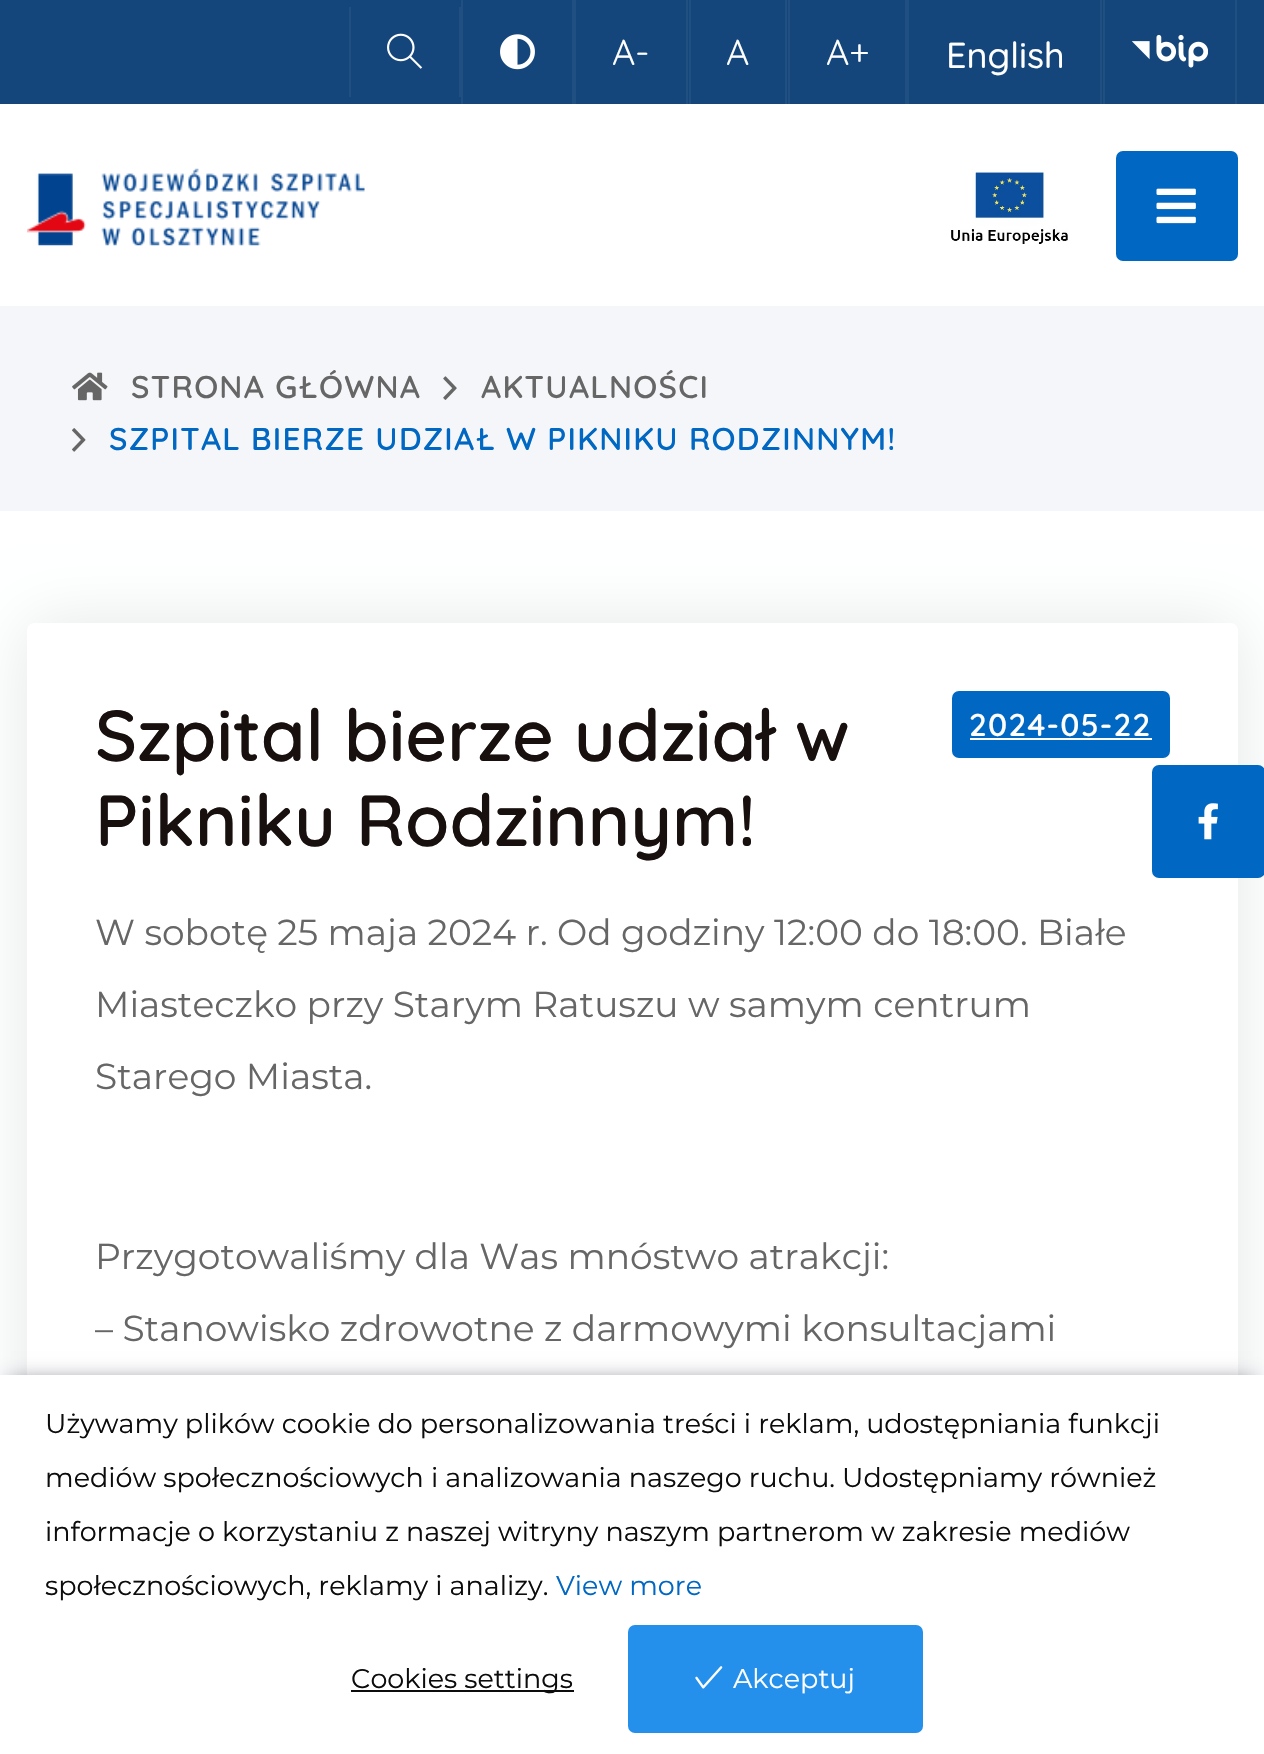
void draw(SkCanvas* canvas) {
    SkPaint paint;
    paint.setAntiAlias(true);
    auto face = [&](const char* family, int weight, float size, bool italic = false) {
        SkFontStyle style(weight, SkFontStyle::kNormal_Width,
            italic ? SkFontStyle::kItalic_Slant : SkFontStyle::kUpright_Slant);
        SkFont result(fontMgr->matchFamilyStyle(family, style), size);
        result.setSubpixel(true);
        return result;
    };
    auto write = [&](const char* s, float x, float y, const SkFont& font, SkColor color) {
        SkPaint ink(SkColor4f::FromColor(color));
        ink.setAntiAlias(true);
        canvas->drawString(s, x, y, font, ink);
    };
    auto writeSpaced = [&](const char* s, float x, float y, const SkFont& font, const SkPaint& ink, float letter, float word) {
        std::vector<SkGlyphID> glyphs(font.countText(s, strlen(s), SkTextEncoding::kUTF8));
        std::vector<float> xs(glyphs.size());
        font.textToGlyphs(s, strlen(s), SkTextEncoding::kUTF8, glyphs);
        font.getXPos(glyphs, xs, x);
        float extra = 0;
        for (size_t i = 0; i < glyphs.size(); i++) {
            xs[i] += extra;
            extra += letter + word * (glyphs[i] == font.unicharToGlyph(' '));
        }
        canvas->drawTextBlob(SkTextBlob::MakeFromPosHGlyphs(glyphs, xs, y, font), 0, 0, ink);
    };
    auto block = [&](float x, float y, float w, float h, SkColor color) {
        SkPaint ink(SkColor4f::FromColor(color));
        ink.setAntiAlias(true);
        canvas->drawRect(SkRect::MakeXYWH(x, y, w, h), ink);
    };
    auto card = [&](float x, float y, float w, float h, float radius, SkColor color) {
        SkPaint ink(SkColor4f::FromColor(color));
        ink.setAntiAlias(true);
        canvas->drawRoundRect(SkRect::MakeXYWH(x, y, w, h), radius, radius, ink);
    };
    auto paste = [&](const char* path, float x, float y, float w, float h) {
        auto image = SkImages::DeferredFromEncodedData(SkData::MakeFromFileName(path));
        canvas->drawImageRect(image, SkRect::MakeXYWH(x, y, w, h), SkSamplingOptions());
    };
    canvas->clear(SK_ColorWHITE);
    block(0, 0, 1264, 104, SkColorSetRGB(20, 69, 123));
    block(459, 7, 2, 90, SkColorSetRGB(32, 79, 129));
    block(349, 7, 2, 90, SkColorSetRGB(32, 79, 129));
    paste("pic1.png", 387, 33, 36, 36);
    block(572, 0, 4, 104, SkColorSetRGB(32, 79, 129));
    block(461, 0, 2, 104, SkColorSetRGB(32, 79, 129));
    paste("pic2.png", 500, 34, 35, 36);
    block(686, 0, 2, 104, SkColorSetRGB(32, 79, 129));
    auto kFont1 = face("Quicksand", 400, 36);
    write("A-", 612, 65, kFont1, SK_ColorWHITE);
    block(785, 0, 2, 104, SkColorSetRGB(32, 79, 129));
    block(689, 0, 2, 104, SkColorSetRGB(32, 79, 129));
    write("A", 726, 65, kFont1, SK_ColorWHITE);
    block(905, 0, 4, 104, SkColorSetRGB(32, 79, 129));
    block(788, 0, 2, 104, SkColorSetRGB(32, 79, 129));
    write("A+", 826, 65, kFont1, SK_ColorWHITE);
    block(1100, 0, 2, 104, SkColorSetRGB(32, 79, 129));
    auto kFont2 = face("Quicksand", 500, 36);
    write("English", 946, 68, kFont2, SK_ColorWHITE);
    block(1235, 0, 2, 104, SkColorSetRGB(32, 79, 129));
    block(1103, 0, 2, 104, SkColorSetRGB(32, 79, 129));
    paste("pic3.png", 1132, 34, 76, 34);
    paste("pic4.png", 27, 168, 338, 78);
    paste("pic5.png", 951, 169, 117, 75);
    card(1116, 151, 122, 110, 7, SkColorSetRGB(0, 103, 194));
    paste("pic6.png", 1156, 188, 40, 36);
    block(0, 306, 1264, 205, SkColorSetRGB(244, 246, 249));
    paste("pic7.png", 72, 372, 36, 29);
    auto kFont3 = face("Quicksand", 600, 31.5f);
    paint.setColor(SkColorSetRGB(102, 102, 102));
    writeSpaced("STRONA GŁÓWNA", 131, 398, kFont3, paint, 1.25f, 0);
    paste("pic8.png", 443, 376, 14, 24);
    writeSpaced("AKTUALNOŚCI", 481, 398, kFont3, paint, 1.25f, 0);
    paste("pic9.png", 72, 428, 14, 24);
    paint.setColor(SkColorSetRGB(0, 103, 194));
    writeSpaced("SZPITAL BIERZE UDZIAŁ W PIKNIKU RODZINNYM!", 109, 450, kFont3, paint, 1.25f, 0);
    paint.setColor(SkColorSetARGB(26, 0, 20, 9));
    paint.setMaskFilter(SkMaskFilter::MakeBlur(kNormal_SkBlurStyle, 34));
    canvas->drawRoundRect(SkRect::MakeXYWH(27, 623, 1211, 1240), 7, 7, paint);
    paint.setMaskFilter(nullptr);
    card(27, 623, 1211, 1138, 7, SK_ColorWHITE);
    auto kFont4 = face("Quicksand", 600, 72);
    write("Szpital bierze udział w", 95, 761, kFont4, SkColorSetRGB(24, 16, 15));
    write("Pikniku Rodzinnym!", 95, 846, kFont4, SkColorSetRGB(24, 16, 15));
    card(952, 691, 218, 67, 7, SkColorSetRGB(0, 103, 194));
    paint.setColor(SK_ColorWHITE);
    writeSpaced("2024-05-22", 969, 736, kFont3, paint, 1.25f, 0);
    block(970, 738, 182, 2, SK_ColorWHITE);
    auto kFont5 = face("Montserrat", 400, 36);
    write("W sobotę 25 maja 2024 r. Od godziny 12:00 do 18:00. Białe", 95, 945, kFont5, SkColorSetRGB(102, 102, 102));
    write("Miasteczko przy Starym Ratuszu w samym centrum", 95, 1017, kFont5, SkColorSetRGB(102, 102, 102));
    write("Starego Miasta.", 95, 1089, kFont5, SkColorSetRGB(102, 102, 102));
    write("Przygotowaliśmy dla Was mnóstwo atrakcji:", 95, 1269, kFont5, SkColorSetRGB(102, 102, 102));
    write("– Stanowisko zdrowotne z darmowymi konsultacjami", 95, 1341, kFont5, SkColorSetRGB(102, 102, 102));
    card(1152, 765, 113, 113, 7, SkColorSetRGB(0, 103, 194));
    paste("pic10.png", 1198, 803, 20, 37);
    paint.setColor(SkColorSetRGB(66, 68, 90));
    paint.setMaskFilter(SkMaskFilter::MakeBlur(kNormal_SkBlurStyle, 11));
    canvas->drawRect(SkRect::MakeXYWH(11, 1384, 1242, 358), paint);
    paint.setMaskFilter(nullptr);
    block(0, 1375, 1264, 379, SK_ColorWHITE);
    auto kFont6 = face("Montserrat", 400, 27);
    write("Używamy plików cookie do personalizowania treści i reklam, udostępniania funkcji", 45, 1433, kFont6, SkColorSetRGB(12, 12, 12));
    write("mediów społecznościowych i analizowania naszego ruchu. Udostępniamy również", 45, 1487, kFont6, SkColorSetRGB(12, 12, 12));
    write("informacje o korzystaniu z naszej witryny naszym partnerom w zakresie mediów", 45, 1541, kFont6, SkColorSetRGB(12, 12, 12));
    write("społecznościowych, reklamy i analizy.", 45, 1595, kFont6, SkColorSetRGB(12, 12, 12));
    write("View more", 556, 1595, kFont6, SkColorSetRGB(0, 103, 194));
    block(351, 1690, 223, 2, SkColorSetRGB(12, 12, 12));
    write("Cookies settings", 351, 1688, kFont6, SkColorSetRGB(12, 12, 12));
    card(628, 1625, 295, 108, 7, SkColorSetRGB(36, 144, 235));
    paste("pic11.png", 695, 1666, 28, 23);
    write("Akceptuj", 733, 1688, kFont6, SK_ColorWHITE);
}
